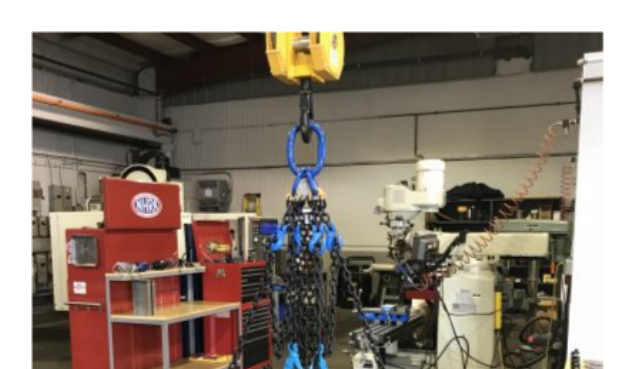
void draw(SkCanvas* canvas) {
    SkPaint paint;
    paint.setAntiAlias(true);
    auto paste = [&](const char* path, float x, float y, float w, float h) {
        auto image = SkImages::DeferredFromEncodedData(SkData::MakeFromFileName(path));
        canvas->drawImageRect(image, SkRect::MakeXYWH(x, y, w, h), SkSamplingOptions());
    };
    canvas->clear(SK_ColorWHITE);
    paste("pic1.png", 31, 31, 573, 338);
}
